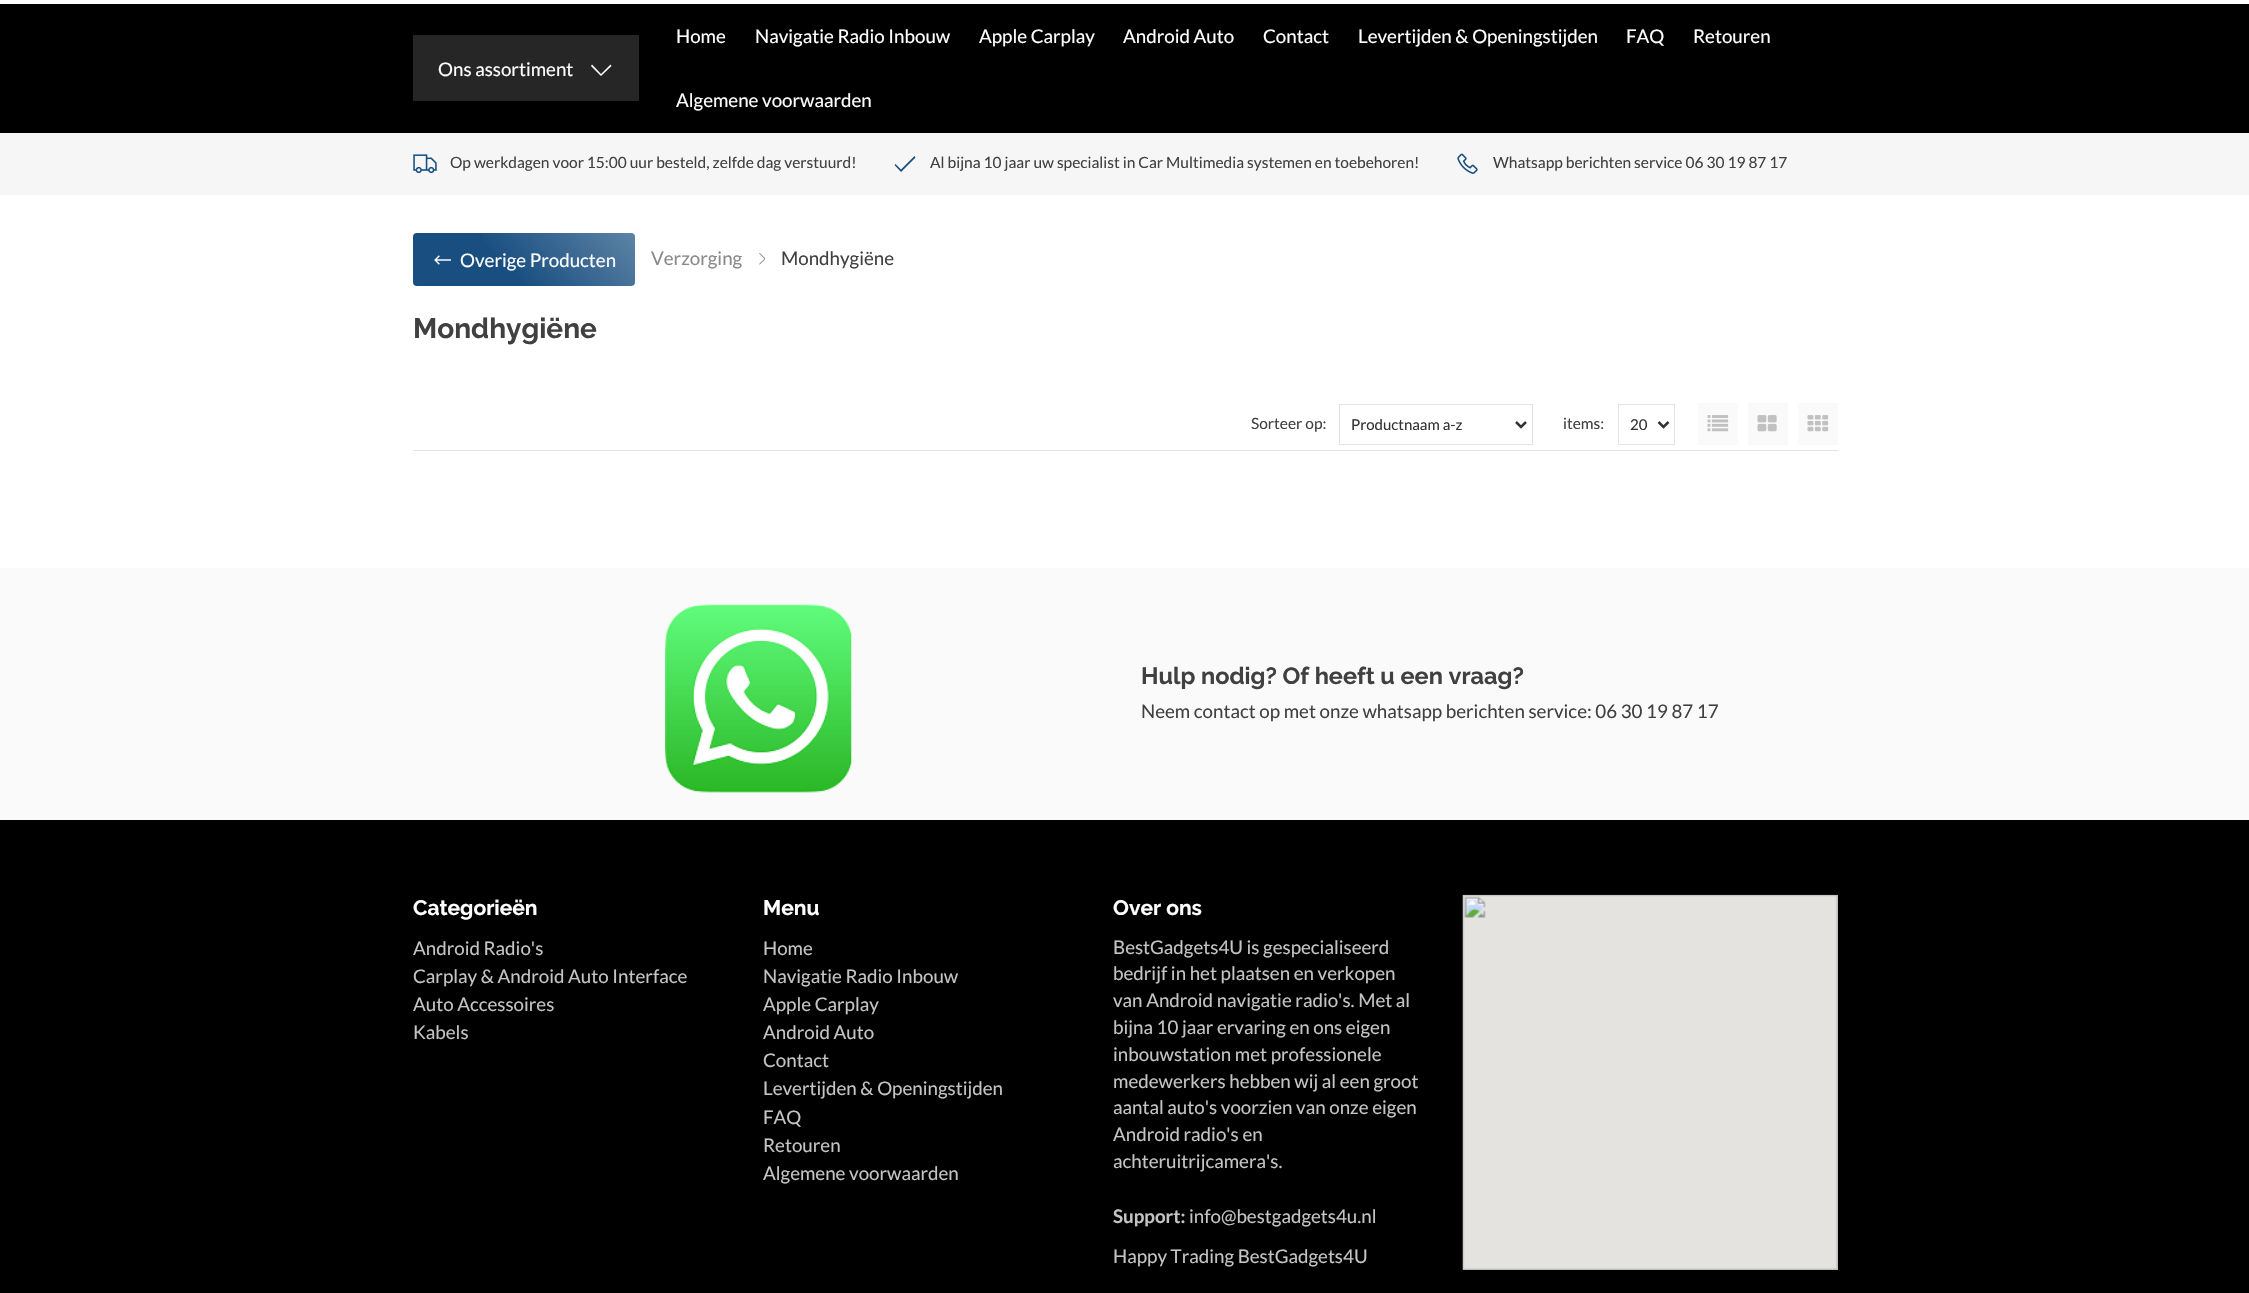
void draw(SkCanvas* canvas) {
    SkPaint paint;
    paint.setAntiAlias(true);
    auto face = [&](const char* family, int weight, float size, bool italic = false) {
        SkFontStyle style(weight, SkFontStyle::kNormal_Width,
            italic ? SkFontStyle::kItalic_Slant : SkFontStyle::kUpright_Slant);
        SkFont result(fontMgr->matchFamilyStyle(family, style), size);
        result.setSubpixel(true);
        return result;
    };
    auto write = [&](const char* s, float x, float y, const SkFont& font, SkColor color) {
        SkPaint ink(SkColor4f::FromColor(color));
        ink.setAntiAlias(true);
        canvas->drawString(s, x, y, font, ink);
    };
    auto block = [&](float x, float y, float w, float h, SkColor color) {
        SkPaint ink(SkColor4f::FromColor(color));
        ink.setAntiAlias(true);
        canvas->drawRect(SkRect::MakeXYWH(x, y, w, h), ink);
    };
    auto card = [&](float x, float y, float w, float h, float radius, SkColor color) {
        SkPaint ink(SkColor4f::FromColor(color));
        ink.setAntiAlias(true);
        canvas->drawRoundRect(SkRect::MakeXYWH(x, y, w, h), radius, radius, ink);
    };
    auto paste = [&](const char* path, float x, float y, float w, float h) {
        auto image = SkImages::DeferredFromEncodedData(SkData::MakeFromFileName(path));
        canvas->drawImageRect(image, SkRect::MakeXYWH(x, y, w, h), SkSamplingOptions());
    };
    canvas->clear(SK_ColorWHITE);
    block(0, 4, 2249, 129, SK_ColorBLACK);
    block(413, 35, 226, 66, SkColorSetRGB(38, 38, 38));
    auto kFont1 = face("Lato", 400, 18.75f);
    write("Ons assortiment", 438, 76, kFont1, SK_ColorWHITE);
    paint.setColor(SK_ColorWHITE);
    canvas->drawPath(SkPathBuilder().moveTo(592, 64.5f).lineTo(591, 66).lineTo(601, 76).lineTo(611.5f, 66).lineTo(610.5f, 64.5f).lineTo(601, 74).close().detach(), paint);
    write("Home", 676, 43, kFont1, SK_ColorWHITE);
    write("Navigatie Radio Inbouw", 755, 43, kFont1, SK_ColorWHITE);
    write("Apple Carplay", 979, 43, kFont1, SK_ColorWHITE);
    write("Android Auto", 1123, 43, kFont1, SK_ColorWHITE);
    write("Contact", 1263, 43, kFont1, SK_ColorWHITE);
    write("Levertijden & Openingstijden", 1358, 43, kFont1, SK_ColorWHITE);
    write("FAQ", 1626, 43, kFont1, SK_ColorWHITE);
    write("Retouren", 1693, 43, kFont1, SK_ColorWHITE);
    write("Algemene voorwaarden", 676, 107, kFont1, SK_ColorWHITE);
    block(0, 133, 2249, 62, SkColorSetRGB(246, 246, 246));
    paste("pic1.png", 413, 154, 24, 20);
    auto kFont2 = face("Lato", 400, 15.5f);
    write("Op werkdagen voor 15:00 uur besteld, zelfde dag verstuurd!", 450, 168, kFont2, SkColorSetRGB(64, 64, 64));
    paint.setColor(SkColorSetRGB(24, 78, 128));
    canvas->drawPath(SkPathBuilder().moveTo(914.5f, 156).lineTo(901, 169.5f).lineTo(895.5f, 164).lineTo(894.5f, 165).lineTo(901, 172).lineTo(915.5f, 157.5f).close().detach(), paint);
    write("Al bijna 10 jaar uw specialist in Car Multimedia systemen en toebehoren!", 930, 168, kFont2, SkColorSetRGB(64, 64, 64));
    paste("pic2.png", 1457, 153, 21, 21);
    write("Whatsapp berichten service 06 30 19 87 17", 1493, 168, kFont2, SkColorSetRGB(64, 64, 64));
    card(413, 233, 222, 53, 4, SkColorSetRGB(24, 78, 128));
    {
        const SkColor colors[] = {SkColorSetARGB(77, 255, 255, 255), SkColorSetARGB(0, 255, 255, 255)};
        const float stops[] = {0, 0.6f};
        const SkPoint ends[] = {{593, 190}, {455, 328}};
        paint.setShader(SkGradientShader::MakeLinear(ends, colors, stops, 2, SkTileMode::kClamp));
        paint.setAlpha(255);
    }
    canvas->drawRect(SkRect::MakeXYWH(483, 233, 152, 53), paint);
    paste("pic3.png", 434, 255, 17, 10);
    write("Overige Producten", 460, 267, kFont1, SK_ColorWHITE);
    write("Verzorging", 651, 265, kFont1, SkColorSetRGB(137, 137, 137));
    paste("pic4.png", 759, 253, 6, 12);
    write("Mondhygiëne", 781, 265, kFont1, SkColorSetRGB(64, 64, 64));
    auto kFont3 = face("Raleway", 700, 28);
    write("Mondhygiëne", 413, 338, kFont3, SkColorSetRGB(64, 64, 64));
    block(413, 450, 1425, 1, SkColorSetRGB(227, 227, 227));
    write("Sorteer op:", 1251, 429, kFont2, SkColorSetRGB(64, 64, 64));
    paint.setStyle(SkPaint::kStroke_Style);
    paint.setStrokeWidth(1);
    paint.setShader(nullptr);
    paint.setColor(SkColorSetRGB(227, 227, 227));
    canvas->drawRect(SkRect::MakeXYWH(1339.5f, 404.5f, 193, 40), paint);
    paint.setStrokeWidth(2.5f);
    paint.setColor(SkColorSetRGB(51, 51, 51));
    canvas->drawPath(SkPathBuilder().moveTo(1516, 422).lineTo(1521, 427).lineTo(1526, 422).detach(), paint);
    auto kFont4 = face("Lato", 400, 15);
    write("Productnaam a-z", 1351, 430, kFont4, SkColorSetRGB(51, 51, 51));
    write("items:", 1563, 429, kFont2, SkColorSetRGB(64, 64, 64));
    paint.setStrokeWidth(1);
    paint.setColor(SkColorSetRGB(227, 227, 227));
    canvas->drawRect(SkRect::MakeXYWH(1618.5f, 404.5f, 56, 40), paint);
    paint.setStrokeWidth(2.5f);
    paint.setColor(SkColorSetRGB(51, 51, 51));
    canvas->drawPath(SkPathBuilder().moveTo(1658.5f, 422).lineTo(1663.5f, 427).lineTo(1668.5f, 422).detach(), paint);
    write("20", 1630, 430, kFont4, SkColorSetRGB(51, 51, 51));
    block(1698, 403, 40, 42, SkColorSetRGB(250, 250, 250));
    paste("pic5.png", 1707, 415, 22, 17);
    block(1748, 403, 40, 42, SkColorSetRGB(250, 250, 250));
    paste("pic6.png", 1757, 415, 20, 17);
    block(1798, 403, 40, 42, SkColorSetRGB(250, 250, 250));
    paste("pic7.png", 1807, 415, 22, 17);
    block(0, 568, 2249, 252, SkColorSetRGB(250, 250, 250));
    paste("pic8.png", 665, 604, 187, 189);
    auto kFont5 = face("Raleway", 700, 23.5f);
    write("Hulp nodig? Of heeft u een vraag?", 1141, 684, kFont5, SkColorSetRGB(64, 64, 64));
    write("Neem contact op met onze whatsapp berichten service: 06 30 19 87 17", 1141, 718, kFont1, SkColorSetRGB(64, 64, 64));
    block(0, 820, 2249, 473, SK_ColorBLACK);
    auto kFont6 = face("Raleway", 700, 21);
    write("Categorieën", 413, 915, kFont6, SK_ColorWHITE);
    write("Android Radio's", 413, 955, kFont1, SkColorSetRGB(196, 196, 196));
    write("Carplay & Android Auto Interface", 413, 983, kFont1, SkColorSetRGB(196, 196, 196));
    write("Auto Accessoires", 413, 1011, kFont1, SkColorSetRGB(196, 196, 196));
    write("Kabels", 413, 1039, kFont1, SkColorSetRGB(196, 196, 196));
    write("Menu", 763, 915, kFont6, SK_ColorWHITE);
    write("Home", 763, 955, kFont1, SkColorSetRGB(196, 196, 196));
    write("Navigatie Radio Inbouw", 763, 983, kFont1, SkColorSetRGB(196, 196, 196));
    write("Apple Carplay", 763, 1011, kFont1, SkColorSetRGB(196, 196, 196));
    write("Android Auto", 763, 1039, kFont1, SkColorSetRGB(196, 196, 196));
    write("Contact", 763, 1067, kFont1, SkColorSetRGB(196, 196, 196));
    write("Levertijden & Openingstijden", 763, 1095, kFont1, SkColorSetRGB(196, 196, 196));
    write("FAQ", 763, 1124, kFont1, SkColorSetRGB(196, 196, 196));
    write("Retouren", 763, 1152, kFont1, SkColorSetRGB(196, 196, 196));
    write("Algemene voorwaarden", 763, 1180, kFont1, SkColorSetRGB(196, 196, 196));
    write("Over ons", 1113, 915, kFont6, SK_ColorWHITE);
    write("BestGadgets4U is gespecialiseerd", 1113, 954, kFont1, SkColorSetRGB(196, 196, 196));
    write("bedrijf in het plaatsen en verkopen", 1113, 980, kFont1, SkColorSetRGB(196, 196, 196));
    write("van Android navigatie radio's. Met al", 1113, 1007, kFont1, SkColorSetRGB(196, 196, 196));
    write("bijna 10 jaar ervaring en ons eigen", 1113, 1034, kFont1, SkColorSetRGB(196, 196, 196));
    write("inbouwstation met professionele", 1113, 1061, kFont1, SkColorSetRGB(196, 196, 196));
    write("medewerkers hebben wij al een groot", 1113, 1088, kFont1, SkColorSetRGB(196, 196, 196));
    write("aantal auto's voorzien van onze eigen", 1113, 1114, kFont1, SkColorSetRGB(196, 196, 196));
    write("Android radio's en", 1113, 1141, kFont1, SkColorSetRGB(196, 196, 196));
    write("achteruitrijcamera's.", 1113, 1168, kFont1, SkColorSetRGB(196, 196, 196));
    auto kFont7 = face("Lato", 700, 18.75f);
    write("Support:", 1113, 1223, kFont7, SkColorSetRGB(196, 196, 196));
    write("info@bestgadgets4u.nl", 1189, 1223, kFont1, SkColorSetRGB(196, 196, 196));
    write("Happy Trading BestGadgets4U", 1113, 1263, kFont1, SkColorSetRGB(196, 196, 196));
    paste("pic9.png", 1462, 894, 376, 376);
}
